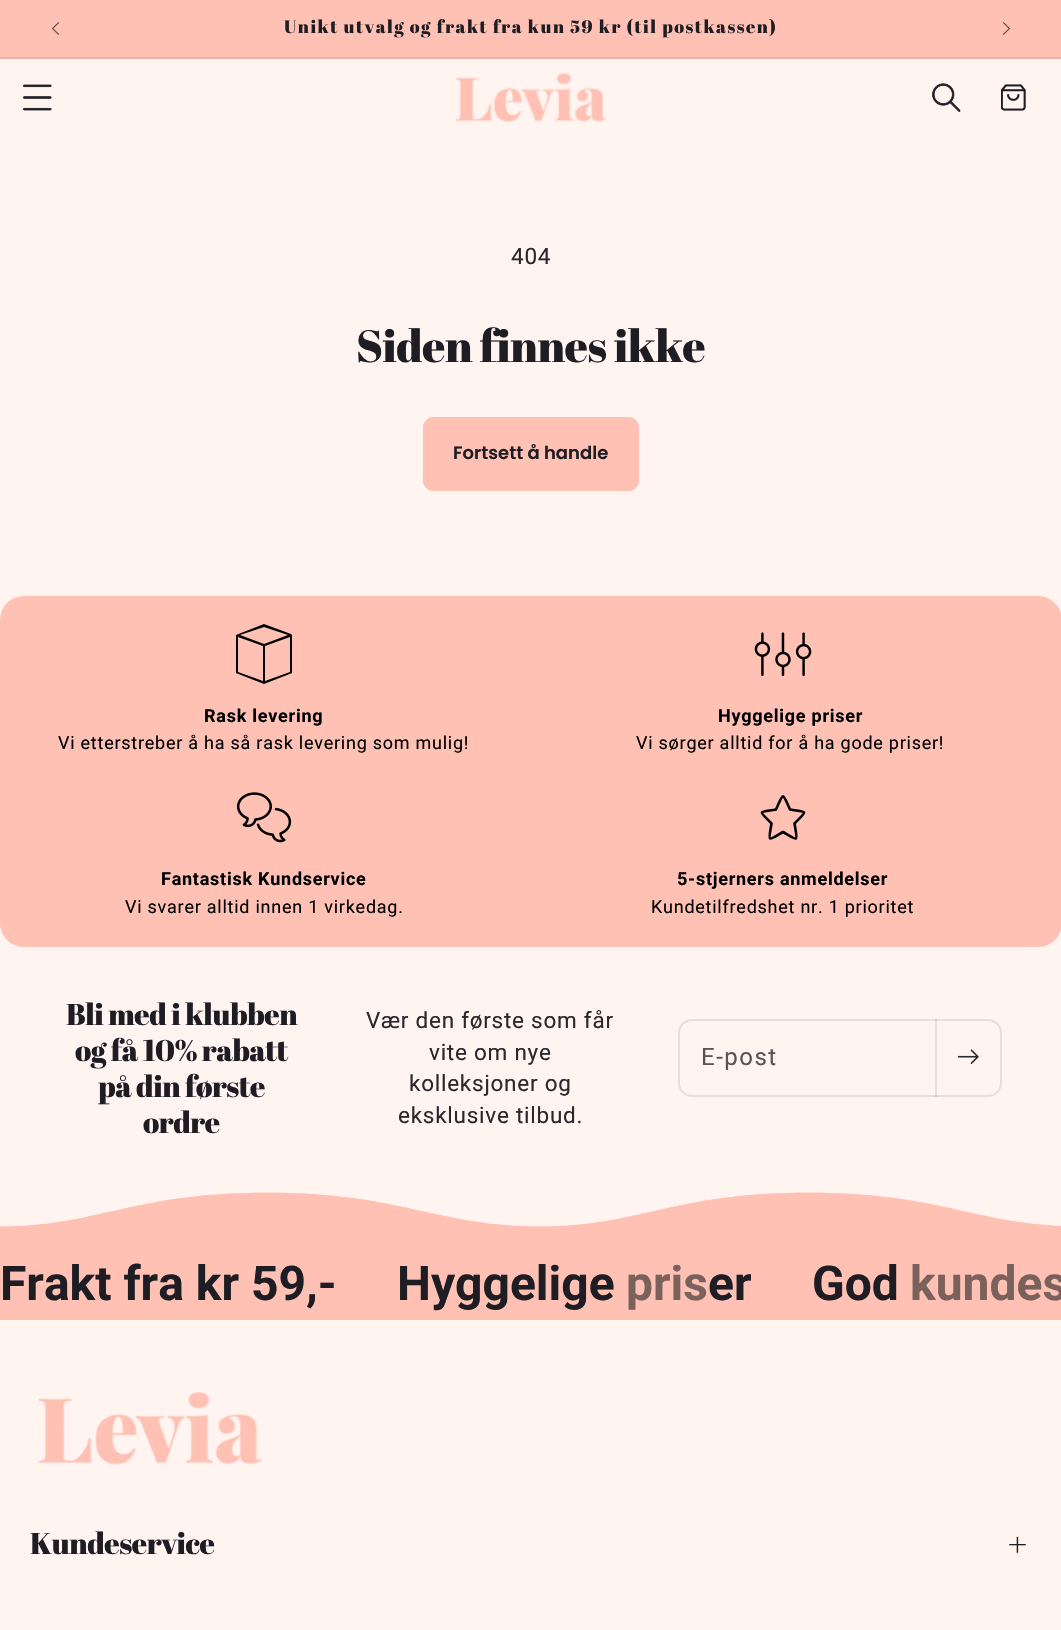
void draw(SkCanvas* canvas) {
    SkPaint paint;
    paint.setAntiAlias(true);
    auto face = [&](const char* family, int weight, float size, bool italic = false) {
        SkFontStyle style(weight, SkFontStyle::kNormal_Width,
            italic ? SkFontStyle::kItalic_Slant : SkFontStyle::kUpright_Slant);
        SkFont result(fontMgr->matchFamilyStyle(family, style), size);
        result.setSubpixel(true);
        return result;
    };
    auto write = [&](const char* s, float x, float y, const SkFont& font, SkColor color) {
        SkPaint ink(SkColor4f::FromColor(color));
        ink.setAntiAlias(true);
        canvas->drawString(s, x, y, font, ink);
    };
    auto writeSpaced = [&](const char* s, float x, float y, const SkFont& font, const SkPaint& ink, float letter, float word) {
        std::vector<SkGlyphID> glyphs(font.countText(s, strlen(s), SkTextEncoding::kUTF8));
        std::vector<float> xs(glyphs.size());
        font.textToGlyphs(s, strlen(s), SkTextEncoding::kUTF8, glyphs);
        font.getXPos(glyphs, xs, x);
        float extra = 0;
        for (size_t i = 0; i < glyphs.size(); i++) {
            xs[i] += extra;
            extra += letter + word * (glyphs[i] == font.unicharToGlyph(' '));
        }
        canvas->drawTextBlob(SkTextBlob::MakeFromPosHGlyphs(glyphs, xs, y, font), 0, 0, ink);
    };
    auto block = [&](float x, float y, float w, float h, SkColor color) {
        SkPaint ink(SkColor4f::FromColor(color));
        ink.setAntiAlias(true);
        canvas->drawRect(SkRect::MakeXYWH(x, y, w, h), ink);
    };
    auto card = [&](float x, float y, float w, float h, float radius, SkColor color) {
        SkPaint ink(SkColor4f::FromColor(color));
        ink.setAntiAlias(true);
        canvas->drawRoundRect(SkRect::MakeXYWH(x, y, w, h), radius, radius, ink);
    };
    auto paste = [&](const char* path, float x, float y, float w, float h) {
        auto image = SkImages::DeferredFromEncodedData(SkData::MakeFromFileName(path));
        canvas->drawImageRect(image, SkRect::MakeXYWH(x, y, w, h), SkSamplingOptions());
    };
    canvas->clear(SkColorSetRGB(255, 244, 240));
    block(0, 0, 1061, 57, SkColorSetRGB(255, 193, 180));
    block(0, 57, 1061, 2, SkColorSetRGB(237, 180, 168));
    paste("pic1.png", 51, 22, 9, 13);
    auto kFont1 = face("Abril Fatface", 400, 18);
    paint.setColor(SkColorSetRGB(31, 29, 36));
    writeSpaced("Unikt utvalg og frakt fra kun 59 kr (til postkassen)", 284, 33, kFont1, paint, 1.5f, 0);
    paste("pic2.png", 1002, 22, 9, 13);
    paste("pic3.png", 23, 84, 29, 27);
    paste("pic4.png", 456, 73, 150, 49);
    paste("pic5.png", 932, 83, 29, 29);
    paste("pic6.png", 1001, 84, 25, 27);
    auto kFont2 = face("Roboto", 400, 22.5f);
    paint.setColor(SkColorSetRGB(42, 40, 46));
    writeSpaced("404", 511, 264, kFont2, paint, 0.75f, 0);
    auto kFont3 = face("Abril Fatface", 400, 45);
    paint.setColor(SkColorSetRGB(31, 29, 36));
    writeSpaced("Siden finnes ikke", 356, 362, kFont3, paint, -0.5f, 0);
    card(423, 417, 216, 74, 11, SkColorSetRGB(255, 193, 180));
    paint.setStyle(SkPaint::kStroke_Style);
    paint.setStrokeWidth(2);
    paint.setColor(SkColorSetRGB(255, 193, 180));
    canvas->drawRoundRect(SkRect::MakeXYWH(424, 418, 214, 72), 10, 10, paint);
    auto kFont4 = face("Poppins", 600, 18);
    write("Fortsett å handle", 453, 459, kFont4, SkColorSetRGB(31, 29, 36));
    card(0, 596, 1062, 351, 24, SkColorSetRGB(255, 193, 180));
    paint.setStyle(SkPaint::kFill_Style);
    paint.setColor(SK_ColorBLACK);
    canvas->drawPath(SkPathBuilder().moveTo(291, 634).lineTo(264, 624).lineTo(236, 635).lineTo(236, 673).lineTo(264, 684).lineTo(292, 673).lineTo(292, 635).close().moveTo(263, 681).lineTo(238, 672).lineTo(238, 637).lineTo(263, 646).close().moveTo(264, 644).lineTo(240, 635).lineTo(264, 627).lineTo(288, 635).close().moveTo(290, 672).lineTo(265, 681).lineTo(265, 646).lineTo(290, 637).close().detach(), paint);
    auto kFont5 = face("Roboto", 700, 18);
    writeSpaced("Rask levering", 204, 722, kFont5, paint, 0.75f, 0);
    auto kFont6 = face("Roboto", 400, 18);
    writeSpaced("Vi etterstreber å ha så rask levering som mulig!", 58, 749, kFont6, paint, 0.75f, 0);
    paste("pic7.png", 754, 632, 58, 45);
    writeSpaced("Hyggelige priser", 718, 722, kFont5, paint, 0.75f, 0);
    writeSpaced("Vi sørger alltid for å ha gode priser!", 636, 749, kFont6, paint, 0.75f, 0);
    paste("pic8.png", 236, 792, 56, 51);
    writeSpaced("Fantastisk Kundservice", 161, 885, kFont5, paint, 0.75f, 0);
    writeSpaced("Vi svarer alltid innen 1 virkedag.", 125, 913, kFont6, paint, 0.75f, 0);
    paint.setStyle(SkPaint::kStroke_Style);
    paint.setStrokeWidth(2.6f);
    paint.setStrokeCap(SkPaint::kRound_Cap);
    paint.setStrokeJoin(SkPaint::kRound_Join);
    canvas->drawPath(SkPathBuilder().moveTo(790, 809.5f).cubicTo(782, 792, 784, 792, 776, 809.5f).cubicTo(757.5f, 812.5f, 758.5f, 810, 771.5f, 823.5f).cubicTo(768.5f, 842.5f, 766.5f, 841.5f, 783, 832).cubicTo(799.5f, 841.5f, 797.5f, 842.5f, 794.5f, 823.5f).cubicTo(807.5f, 810, 808.5f, 812.5f, 790, 809.5f).close().detach(), paint);
    paint.setStyle(SkPaint::kFill_Style);
    writeSpaced("5-stjerners anmeldelser", 677, 885, kFont5, paint, 0.75f, 0);
    writeSpaced("Kundetilfredshet nr. 1 prioritet", 651, 913, kFont6, paint, 0.75f, 0);
    auto kFont7 = face("Abril Fatface", 400, 30);
    paint.setColor(SkColorSetRGB(31, 29, 36));
    writeSpaced("Bli med i klubben", 66, 1025, kFont7, paint, -0.5f, 0);
    writeSpaced("og få 10% rabatt", 75, 1061, kFont7, paint, -0.5f, 0);
    writeSpaced("på din første", 98, 1097, kFont7, paint, -0.5f, 0);
    writeSpaced("ordre", 143, 1133, kFont7, paint, -0.5f, 0);
    paint.setColor(SkColorSetRGB(42, 40, 46));
    writeSpaced("Vær den første som får", 366, 1028, kFont2, paint, 0.75f, 0);
    writeSpaced("vite om nye", 429, 1060, kFont2, paint, 0.75f, 0);
    writeSpaced("kolleksjoner og", 409, 1091, kFont2, paint, 0.75f, 0);
    writeSpaced("eksklusive tilbud.", 398, 1123, kFont2, paint, 0.75f, 0);
    paint.setStyle(SkPaint::kStroke_Style);
    paint.setStrokeWidth(2);
    paint.setStrokeCap(SkPaint::kButt_Cap);
    paint.setStrokeJoin(SkPaint::kMiter_Join);
    paint.setColor(SkColorSetRGB(233, 222, 220));
    canvas->drawRoundRect(SkRect::MakeXYWH(679, 1020, 322, 76), 13, 13, paint);
    auto kFont8 = face("Roboto", 400, 24);
    paint.setStyle(SkPaint::kFill_Style);
    paint.setColor(SkColorSetRGB(87, 83, 87));
    writeSpaced("E-post", 701, 1065, kFont8, paint, 1.5f, 0);
    block(935, 1019, 2, 78, SkColorSetARGB(26, 31, 29, 36));
    paste("pic9.png", 957, 1049, 22, 15);
    paste("pic10.png", 0, 1192, 1061, 56);
    paste("pic11.png", 0, 1192, 1057, 35);
    paste("pic12.png", 0, 1192, 1057, 35);
    block(0, 1248, 1061, 72, SkColorSetRGB(255, 193, 180));
    auto kFont9 = face("Roboto", 700, 48);
    write("Frakt fra kr 59,-", 0, 1300, kFont9, SkColorSetRGB(31, 29, 36));
    write("Hyggelige", 397, 1300, kFont9, SkColorSetRGB(31, 29, 36));
    write("pris", 626, 1300, kFont9, SkColorSetRGB(122, 97, 92));
    write("er", 708, 1300, kFont9, SkColorSetRGB(31, 29, 36));
    write("God", 812, 1300, kFont9, SkColorSetRGB(31, 29, 36));
    write("kundes", 910, 1300, kFont9, SkColorSetRGB(122, 97, 92));
    paste("pic13.png", 38, 1391, 224, 74);
    paint.setColor(SkColorSetRGB(31, 29, 36));
    writeSpaced("Kundeservice", 30, 1554, kFont7, paint, -0.5f, 0);
    auto kFont10 = face("Abril Fatface", 400, 36);
    writeSpaced("+", 1008, 1556, kFont10, paint, -0.5f, 0);
}
